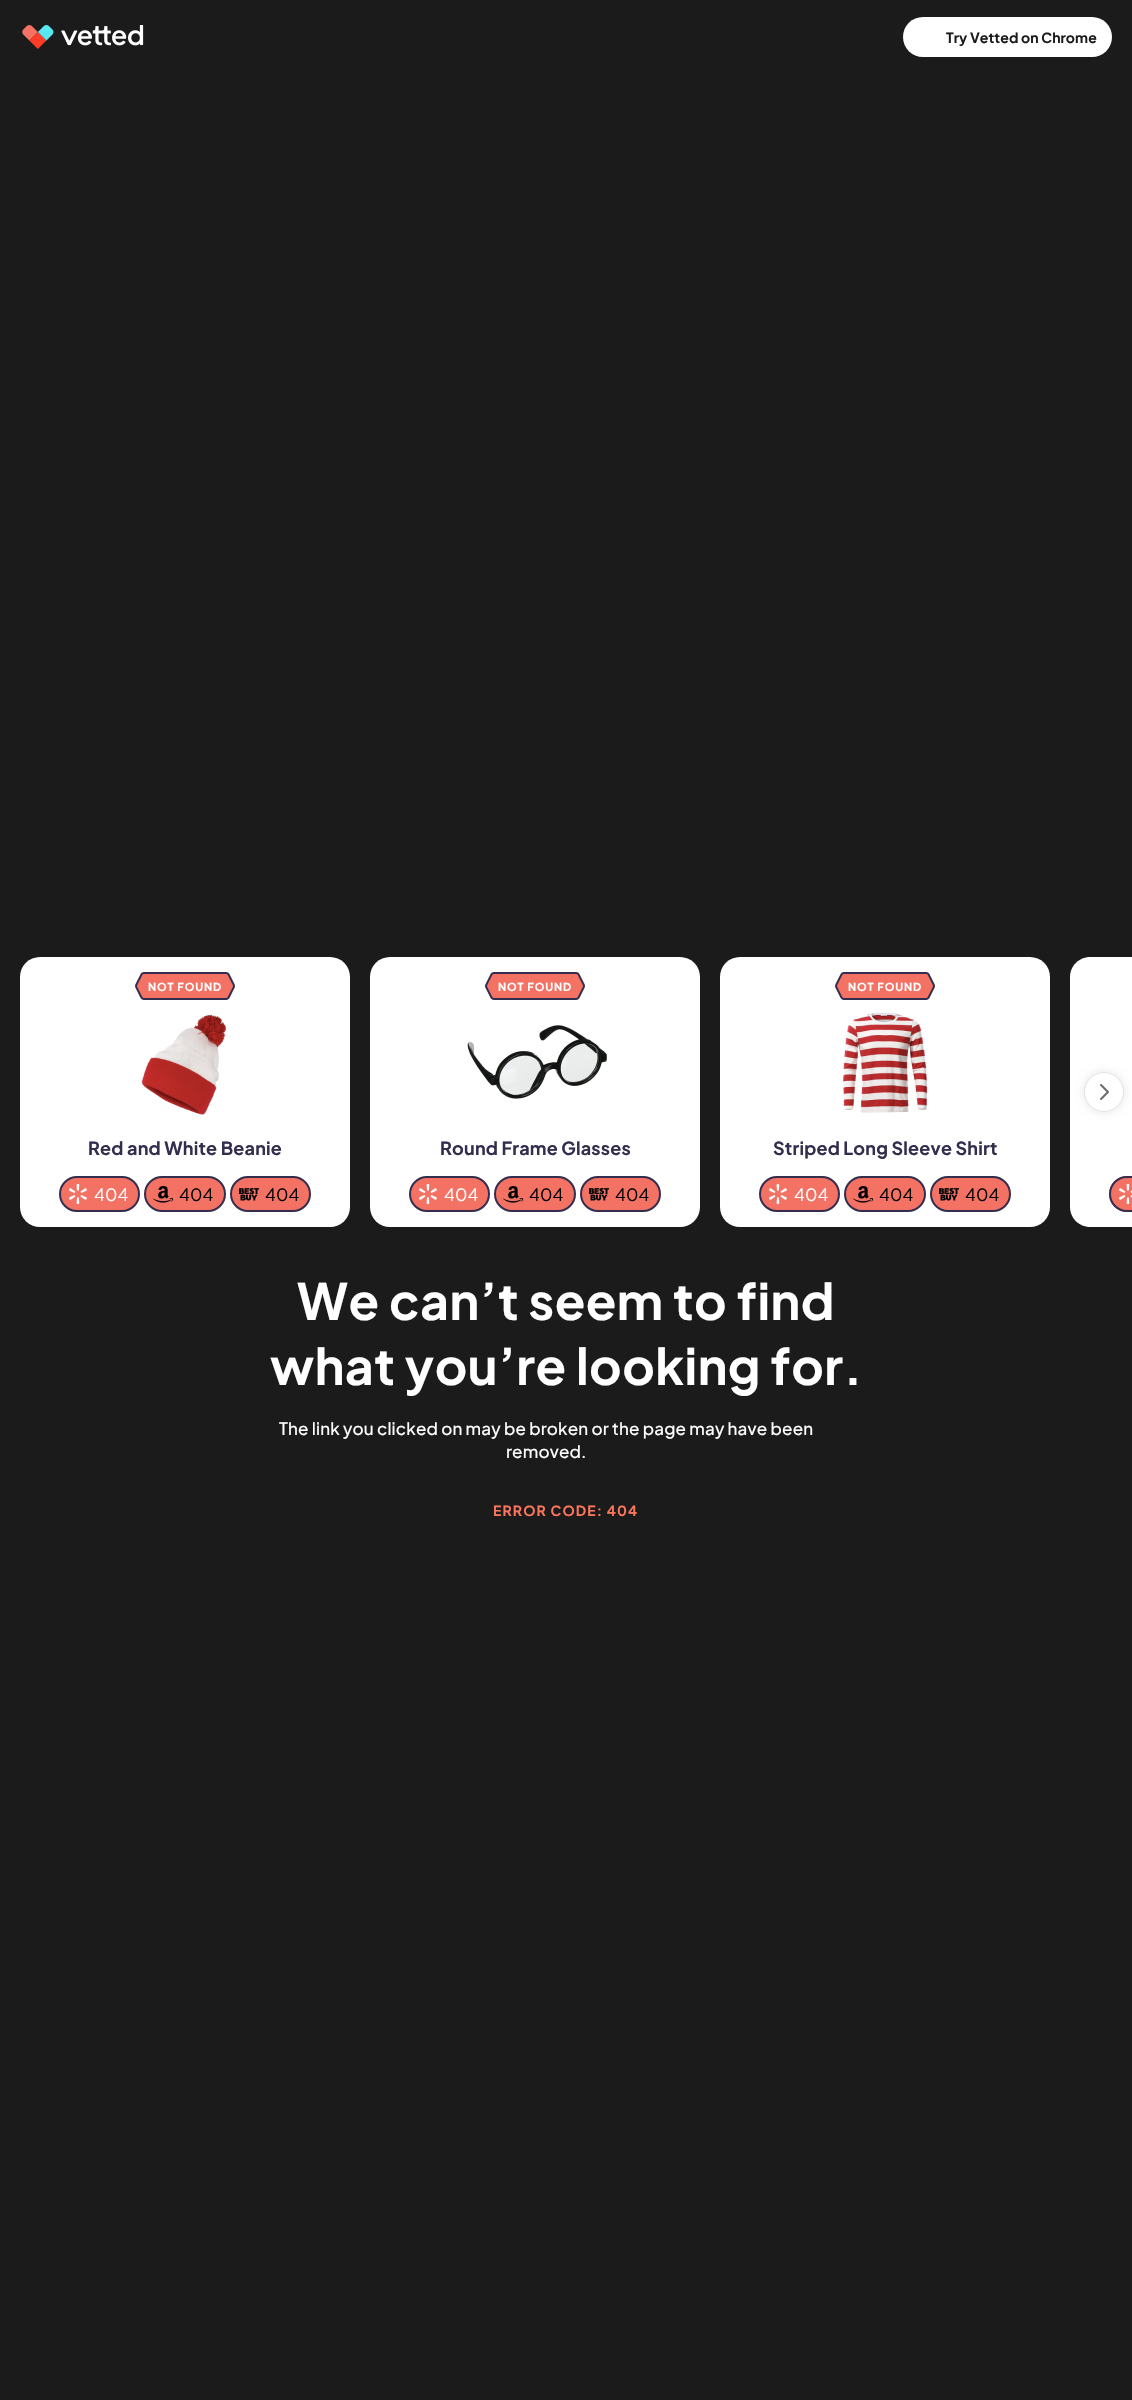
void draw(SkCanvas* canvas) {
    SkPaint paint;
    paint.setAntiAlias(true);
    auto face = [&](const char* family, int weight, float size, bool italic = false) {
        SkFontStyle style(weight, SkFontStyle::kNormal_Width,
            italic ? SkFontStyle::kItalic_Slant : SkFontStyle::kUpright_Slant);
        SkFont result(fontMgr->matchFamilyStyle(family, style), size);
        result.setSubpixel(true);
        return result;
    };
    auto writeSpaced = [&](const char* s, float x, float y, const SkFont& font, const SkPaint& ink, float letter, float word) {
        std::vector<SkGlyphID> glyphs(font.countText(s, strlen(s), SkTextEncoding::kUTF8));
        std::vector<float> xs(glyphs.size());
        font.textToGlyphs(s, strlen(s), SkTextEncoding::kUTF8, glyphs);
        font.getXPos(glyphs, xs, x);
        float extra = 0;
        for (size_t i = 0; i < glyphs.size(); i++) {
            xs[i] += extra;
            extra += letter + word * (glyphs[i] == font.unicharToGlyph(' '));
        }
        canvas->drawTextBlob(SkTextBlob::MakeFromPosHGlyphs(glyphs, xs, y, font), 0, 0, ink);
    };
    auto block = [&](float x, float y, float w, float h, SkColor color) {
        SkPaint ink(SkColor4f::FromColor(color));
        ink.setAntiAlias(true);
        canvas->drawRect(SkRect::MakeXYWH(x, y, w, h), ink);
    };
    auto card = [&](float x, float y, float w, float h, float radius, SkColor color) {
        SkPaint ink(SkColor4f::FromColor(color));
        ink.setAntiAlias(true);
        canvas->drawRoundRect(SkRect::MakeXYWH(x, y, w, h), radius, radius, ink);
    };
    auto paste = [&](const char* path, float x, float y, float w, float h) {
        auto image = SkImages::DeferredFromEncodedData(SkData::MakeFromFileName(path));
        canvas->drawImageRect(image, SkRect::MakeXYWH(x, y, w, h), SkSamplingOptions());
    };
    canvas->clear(SkColorSetRGB(27, 27, 27));
    paste("pic1.png", 22, 25, 122, 24);
    card(903, 17, 209, 40, 20, SK_ColorWHITE);
    auto kFont1 = face("Plus Jakarta Sans", 700, 14);
    paint.setColor(SkColorSetRGB(27, 27, 27));
    writeSpaced("Try Vetted on Chrome", 946, 43, kFont1, paint, 0.1f, 0);
    card(20, 957, 330, 270, 20, SK_ColorWHITE);
    paste("pic2.png", 135, 972, 9, 28);
    block(144, 974, 82, 24, SkColorSetRGB(244, 114, 100));
    block(144, 972, 82, 2, SkColorSetRGB(52, 45, 77));
    block(144, 998, 82, 2, SkColorSetRGB(52, 45, 77));
    auto kFont2 = face("Plus Jakarta Sans", 700, 11);
    paint.setColor(SK_ColorWHITE);
    writeSpaced("NOT FOUND", 148, 991, kFont2, paint, 0.9f, 0);
    paste("pic3.png", 226, 972, 9, 28);
    paste("pic4.png", 141, 1014, 85, 101);
    auto kFont3 = face("Plus Jakarta Sans", 700, 18);
    paint.setColor(SkColorSetRGB(52, 45, 77));
    writeSpaced("Red and White Beanie", 88, 1155, kFont3, paint, 0.2f, 0);
    paint.setColor(SkColorSetRGB(244, 114, 100));
    canvas->drawRoundRect(SkRect::MakeXYWH(60, 1177, 79, 34), 17, 17, paint);
    paint.setStyle(SkPaint::kStroke_Style);
    paint.setStrokeWidth(2);
    paint.setColor(SkColorSetRGB(52, 45, 77));
    canvas->drawRoundRect(SkRect::MakeXYWH(60, 1177, 79, 34), 17, 17, paint);
    paste("pic5.png", 69, 1184, 18, 20);
    auto kFont4 = face("Plus Jakarta Sans", 400, 17);
    paint.setStyle(SkPaint::kFill_Style);
    paint.setColor(SK_ColorWHITE);
    writeSpaced("404", 94, 1201, kFont4, paint, 0.17f, 0);
    paint.setColor(SkColorSetRGB(244, 114, 100));
    canvas->drawRoundRect(SkRect::MakeXYWH(145, 1177, 80, 34), 17, 17, paint);
    paint.setStyle(SkPaint::kStroke_Style);
    paint.setColor(SkColorSetRGB(52, 45, 77));
    canvas->drawRoundRect(SkRect::MakeXYWH(145, 1177, 80, 34), 17, 17, paint);
    paste("pic6.png", 153, 1186, 20, 17);
    paint.setStyle(SkPaint::kFill_Style);
    paint.setColor(SK_ColorBLACK);
    writeSpaced("404", 179, 1201, kFont4, paint, 0.17f, 0);
    paint.setColor(SkColorSetRGB(244, 114, 100));
    canvas->drawRoundRect(SkRect::MakeXYWH(231, 1177, 79, 34), 17, 17, paint);
    paint.setStyle(SkPaint::kStroke_Style);
    paint.setColor(SkColorSetRGB(52, 45, 77));
    canvas->drawRoundRect(SkRect::MakeXYWH(231, 1177, 79, 34), 17, 17, paint);
    paste("pic7.png", 239, 1188, 20, 13);
    paint.setStyle(SkPaint::kFill_Style);
    paint.setColor(SK_ColorBLACK);
    writeSpaced("404", 265, 1201, kFont4, paint, 0.17f, 0);
    card(370, 957, 330, 270, 20, SK_ColorWHITE);
    paste("pic2.png", 485, 972, 9, 28);
    block(494, 974, 82, 24, SkColorSetRGB(244, 114, 100));
    block(494, 972, 82, 2, SkColorSetRGB(52, 45, 77));
    block(494, 998, 82, 2, SkColorSetRGB(52, 45, 77));
    paint.setColor(SK_ColorWHITE);
    writeSpaced("NOT FOUND", 498, 991, kFont2, paint, 0.9f, 0);
    paste("pic3.png", 576, 972, 9, 28);
    paste("pic8.png", 467, 1025, 140, 74);
    paint.setColor(SkColorSetRGB(52, 45, 77));
    writeSpaced("Round Frame Glasses", 440, 1155, kFont3, paint, 0.2f, 0);
    paint.setColor(SkColorSetRGB(244, 114, 100));
    canvas->drawRoundRect(SkRect::MakeXYWH(410, 1177, 79, 34), 17, 17, paint);
    paint.setStyle(SkPaint::kStroke_Style);
    paint.setColor(SkColorSetRGB(52, 45, 77));
    canvas->drawRoundRect(SkRect::MakeXYWH(410, 1177, 79, 34), 17, 17, paint);
    paste("pic5.png", 419, 1184, 18, 20);
    paint.setStyle(SkPaint::kFill_Style);
    paint.setColor(SK_ColorWHITE);
    writeSpaced("404", 444, 1201, kFont4, paint, 0.17f, 0);
    paint.setColor(SkColorSetRGB(244, 114, 100));
    canvas->drawRoundRect(SkRect::MakeXYWH(495, 1177, 80, 34), 17, 17, paint);
    paint.setStyle(SkPaint::kStroke_Style);
    paint.setColor(SkColorSetRGB(52, 45, 77));
    canvas->drawRoundRect(SkRect::MakeXYWH(495, 1177, 80, 34), 17, 17, paint);
    paste("pic6.png", 503, 1186, 20, 17);
    paint.setStyle(SkPaint::kFill_Style);
    paint.setColor(SK_ColorBLACK);
    writeSpaced("404", 529, 1201, kFont4, paint, 0.17f, 0);
    paint.setColor(SkColorSetRGB(244, 114, 100));
    canvas->drawRoundRect(SkRect::MakeXYWH(581, 1177, 79, 34), 17, 17, paint);
    paint.setStyle(SkPaint::kStroke_Style);
    paint.setColor(SkColorSetRGB(52, 45, 77));
    canvas->drawRoundRect(SkRect::MakeXYWH(581, 1177, 79, 34), 17, 17, paint);
    paste("pic7.png", 589, 1188, 20, 13);
    paint.setStyle(SkPaint::kFill_Style);
    paint.setColor(SK_ColorBLACK);
    writeSpaced("404", 615, 1201, kFont4, paint, 0.17f, 0);
    card(720, 957, 330, 270, 20, SK_ColorWHITE);
    paste("pic2.png", 835, 972, 9, 28);
    block(844, 974, 82, 24, SkColorSetRGB(244, 114, 100));
    block(844, 972, 82, 2, SkColorSetRGB(52, 45, 77));
    block(844, 998, 82, 2, SkColorSetRGB(52, 45, 77));
    paint.setColor(SK_ColorWHITE);
    writeSpaced("NOT FOUND", 848, 991, kFont2, paint, 0.9f, 0);
    paste("pic3.png", 926, 972, 9, 28);
    paste("pic9.png", 843, 1012, 85, 101);
    paint.setColor(SkColorSetRGB(52, 45, 77));
    writeSpaced("Striped Long Sleeve Shirt", 773, 1155, kFont3, paint, 0.2f, 0);
    paint.setColor(SkColorSetRGB(244, 114, 100));
    canvas->drawRoundRect(SkRect::MakeXYWH(760, 1177, 79, 34), 17, 17, paint);
    paint.setStyle(SkPaint::kStroke_Style);
    paint.setColor(SkColorSetRGB(52, 45, 77));
    canvas->drawRoundRect(SkRect::MakeXYWH(760, 1177, 79, 34), 17, 17, paint);
    paste("pic5.png", 769, 1184, 18, 20);
    paint.setStyle(SkPaint::kFill_Style);
    paint.setColor(SK_ColorWHITE);
    writeSpaced("404", 794, 1201, kFont4, paint, 0.17f, 0);
    paint.setColor(SkColorSetRGB(244, 114, 100));
    canvas->drawRoundRect(SkRect::MakeXYWH(845, 1177, 80, 34), 17, 17, paint);
    paint.setStyle(SkPaint::kStroke_Style);
    paint.setColor(SkColorSetRGB(52, 45, 77));
    canvas->drawRoundRect(SkRect::MakeXYWH(845, 1177, 80, 34), 17, 17, paint);
    paste("pic6.png", 853, 1186, 20, 17);
    paint.setStyle(SkPaint::kFill_Style);
    paint.setColor(SK_ColorBLACK);
    writeSpaced("404", 879, 1201, kFont4, paint, 0.17f, 0);
    paint.setColor(SkColorSetRGB(244, 114, 100));
    canvas->drawRoundRect(SkRect::MakeXYWH(931, 1177, 79, 34), 17, 17, paint);
    paint.setStyle(SkPaint::kStroke_Style);
    paint.setColor(SkColorSetRGB(52, 45, 77));
    canvas->drawRoundRect(SkRect::MakeXYWH(931, 1177, 79, 34), 17, 17, paint);
    paste("pic7.png", 939, 1188, 20, 13);
    paint.setStyle(SkPaint::kFill_Style);
    paint.setColor(SK_ColorBLACK);
    writeSpaced("404", 965, 1201, kFont4, paint, 0.17f, 0);
    paint.setColor(SK_ColorWHITE);
    canvas->drawPath(SkPathBuilder().moveTo(1090, 957).lineTo(1132, 957).lineTo(1132, 1227).lineTo(1090, 1227).cubicTo(1079, 1227, 1070, 1218, 1070, 1207).lineTo(1070, 977).cubicTo(1070, 966, 1079, 957, 1090, 957).close().detach(), paint);
    paint.setColor(SkColorSetRGB(244, 114, 100));
    canvas->drawPath(SkPathBuilder().moveTo(1127, 1176).lineTo(1132, 1176).lineTo(1132, 1212).lineTo(1127, 1212).cubicTo(1117, 1212, 1109, 1204, 1109, 1194).cubicTo(1109, 1184, 1117, 1176, 1127, 1176).close().detach(), paint);
    paint.setStyle(SkPaint::kStroke_Style);
    paint.setColor(SkColorSetRGB(52, 45, 77));
    canvas->drawRoundRect(SkRect::MakeXYWH(1110, 1177, 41, 34), 17, 17, paint);
    paste("pic10.png", 1119, 1184, 13, 20);
    paint.setStyle(SkPaint::kFill_Style);
    paint.setColor(SkColorSetARGB(26, 0, 0, 0));
    paint.setMaskFilter(SkMaskFilter::MakeBlur(kNormal_SkBlurStyle, 4));
    canvas->drawRoundRect(SkRect::MakeXYWH(1084, 1072, 40, 40), 20, 20, paint);
    paint.setMaskFilter(nullptr);
    paint.setColor(SK_ColorWHITE);
    canvas->drawCircle(1104, 1092, 19.5f, paint);
    paint.setStyle(SkPaint::kStroke_Style);
    paint.setStrokeWidth(1);
    paint.setColor(SkColorSetRGB(230, 228, 226));
    canvas->drawCircle(1104, 1092, 19.5f, paint);
    paste("pic11.png", 1100, 1084, 9, 16);
    auto kFont5 = face("Plus Jakarta Sans", 700, 50);
    paint.setStyle(SkPaint::kFill_Style);
    paint.setColor(SK_ColorWHITE);
    writeSpaced("We can’t seem to find", 297, 1320, kFont5, paint, 0.5f, 0);
    writeSpaced("what you’re looking for.", 270, 1385, kFont5, paint, 0.5f, 0);
    auto kFont6 = face("Plus Jakarta Sans", 500, 17);
    writeSpaced("The link you clicked on may be broken or the page may have been", 279, 1435, kFont6, paint, 0.17f, 0);
    writeSpaced("removed.", 506, 1458, kFont6, paint, 0.17f, 0);
    paint.setColor(SkColorSetRGB(253, 118, 93));
    writeSpaced("ERROR CODE: 404", 493, 1516, kFont1, paint, 1.1f, 0);
}
